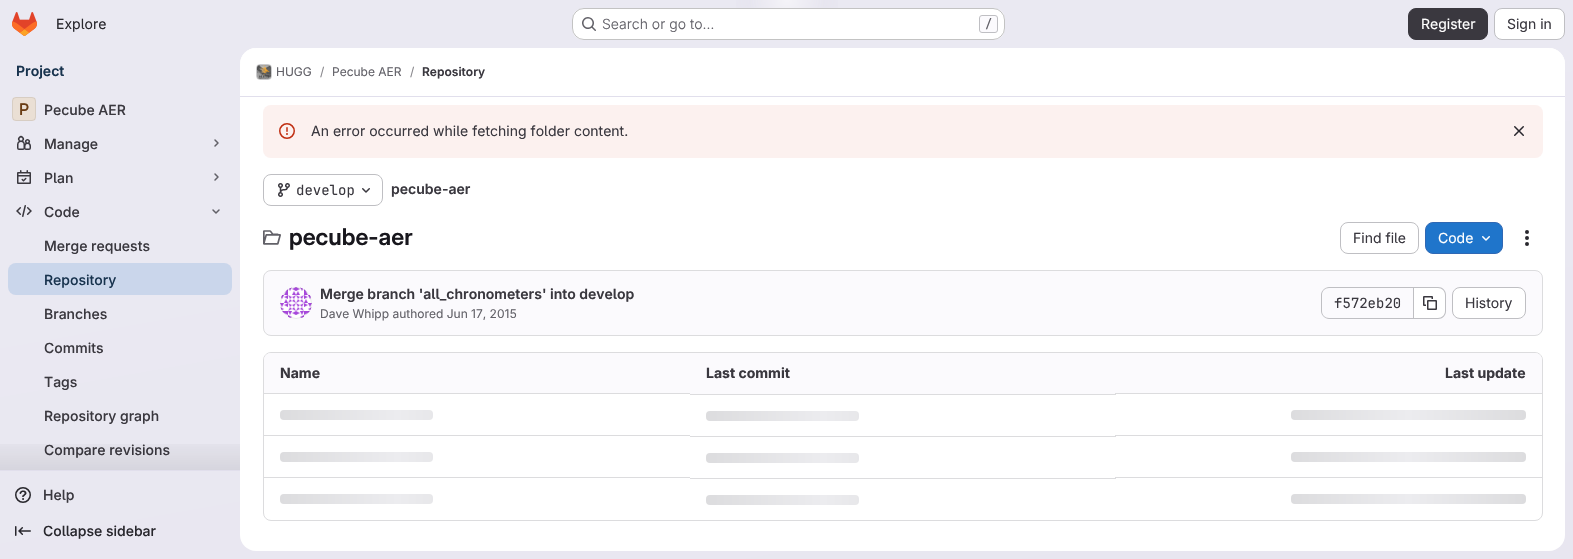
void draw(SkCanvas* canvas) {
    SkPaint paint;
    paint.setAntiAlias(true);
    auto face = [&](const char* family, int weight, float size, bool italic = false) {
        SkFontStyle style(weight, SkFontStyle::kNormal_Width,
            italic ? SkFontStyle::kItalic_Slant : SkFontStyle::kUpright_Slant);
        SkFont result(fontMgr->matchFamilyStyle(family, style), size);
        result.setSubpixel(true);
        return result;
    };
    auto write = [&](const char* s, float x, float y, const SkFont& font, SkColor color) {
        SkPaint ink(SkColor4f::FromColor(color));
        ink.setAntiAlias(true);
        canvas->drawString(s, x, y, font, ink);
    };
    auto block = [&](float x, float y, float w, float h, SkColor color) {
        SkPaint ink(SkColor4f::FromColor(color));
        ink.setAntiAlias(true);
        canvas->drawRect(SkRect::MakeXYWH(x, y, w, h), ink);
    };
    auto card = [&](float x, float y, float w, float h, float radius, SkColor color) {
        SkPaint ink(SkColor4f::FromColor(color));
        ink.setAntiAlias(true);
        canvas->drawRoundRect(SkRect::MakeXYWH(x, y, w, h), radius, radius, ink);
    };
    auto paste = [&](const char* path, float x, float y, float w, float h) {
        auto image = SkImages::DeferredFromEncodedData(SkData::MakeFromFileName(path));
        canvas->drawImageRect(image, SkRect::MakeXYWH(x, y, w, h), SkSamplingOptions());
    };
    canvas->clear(SK_ColorWHITE);
    {
        const SkColor colors[] = {SkColorSetRGB(232, 230, 240), SkColorSetRGB(234, 233, 242)};
        const float stops[] = {0, 0.7f};
        const SkPoint ends[] = {{858, 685}, {715, -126}};
        paint.setShader(SkGradientShader::MakeLinear(ends, colors, stops, 2, SkTileMode::kClamp));
        paint.setAlpha(255);
    }
    canvas->drawRect(SkRect::MakeXYWH(0, 0, 1573, 559), paint);
    {
        const SkColor colors[] = {SkColorSetRGB(228, 226, 237), SkColorSetARGB(0, 228, 226, 237)};
        const float stops[] = {0, 0.09f};
        SkMatrix m = SkMatrix::Translate(787, 0).preScale(787, 559);
        paint.setShader(SkGradientShader::MakeRadial({0, 0}, 1, colors, stops, 2, SkTileMode::kClamp, 0, &m));
        paint.setAlpha(255);
    }
    canvas->drawRect(SkRect::MakeXYWH(736, 0, 102, 36), paint);
    {
        const SkColor colors[] = {SkColorSetARGB(153, 255, 255, 255), SkColorSetARGB(0, 255, 255, 255)};
        const float stops[] = {0, 0.04f};
        paint.setShader(SkGradientShader::MakeRadial({787, 0}, 965, colors, stops, 2, SkTileMode::kClamp));
        paint.setAlpha(255);
    }
    canvas->drawRect(SkRect::MakeXYWH(750, 0, 74, 8), paint);
    paste("pic1.png", 12, 12, 25, 24);
    auto kFont1 = face("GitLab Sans", 400, 14);
    write("Explore", 56, 29, kFont1, SkColorSetRGB(40, 39, 45));
    card(572, 8, 433, 32, 12, SK_ColorWHITE);
    paint.setStyle(SkPaint::kStroke_Style);
    paint.setStrokeWidth(1);
    paint.setShader(nullptr);
    paint.setColor(SkColorSetARGB(61, 5, 5, 6));
    canvas->drawRoundRect(SkRect::MakeXYWH(572.5f, 8.5f, 432, 31), 11.5f, 11.5f, paint);
    paste("pic2.png", 582, 17, 14, 14);
    auto kFont2 = face("GitLab Sans", 300, 14);
    write("Search or go to…", 602, 29, kFont2, SkColorSetRGB(98, 97, 104));
    paint.setStyle(SkPaint::kFill_Style);
    paint.setColor(SkColorSetRGB(251, 250, 253));
    canvas->drawRoundRect(SkRect::MakeXYWH(979.5f, 15.5f, 18, 17), 2.5f, 2.5f, paint);
    paint.setStyle(SkPaint::kStroke_Style);
    paint.setColor(SkColorSetRGB(191, 191, 195));
    canvas->drawRoundRect(SkRect::MakeXYWH(979.5f, 15.5f, 18, 17), 2.5f, 2.5f, paint);
    auto kFont3 = face("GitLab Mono", 500, 12);
    write("/", 985, 28, kFont3, SkColorSetRGB(98, 97, 104));
    paint.setStyle(SkPaint::kFill_Style);
    paint.setColor(SkColorSetRGB(58, 56, 63));
    canvas->drawRoundRect(SkRect::MakeXYWH(1408.5f, 8.5f, 79, 31), 7.5f, 7.5f, paint);
    paint.setStyle(SkPaint::kStroke_Style);
    canvas->drawRoundRect(SkRect::MakeXYWH(1408.5f, 8.5f, 79, 31), 7.5f, 7.5f, paint);
    write("Register", 1421, 29, kFont1, SK_ColorWHITE);
    paint.setStyle(SkPaint::kFill_Style);
    paint.setColor(SK_ColorWHITE);
    canvas->drawRoundRect(SkRect::MakeXYWH(1494.5f, 8.5f, 70, 31), 7.5f, 7.5f, paint);
    paint.setStyle(SkPaint::kStroke_Style);
    paint.setColor(SkColorSetRGB(191, 191, 195));
    canvas->drawRoundRect(SkRect::MakeXYWH(1494.5f, 8.5f, 70, 31), 7.5f, 7.5f, paint);
    write("Sign in", 1507, 29, kFont1, SkColorSetRGB(58, 56, 63));
    auto kFont4 = face("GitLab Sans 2", 600, 14);
    write("Project", 16, 76, kFont4, SkColorSetRGB(24, 51, 78));
    block(0, 470, 240, 1, SkColorSetRGB(225, 223, 236));
    card(12, 97, 24, 24, 4, SkColorSetRGB(234, 223, 212));
    paint.setColor(SkColorSetARGB(20, 5, 5, 6));
    canvas->drawRoundRect(SkRect::MakeXYWH(12.5f, 97.5f, 23, 23), 3.5f, 3.5f, paint);
    auto kFont5 = face("GitLab Sans 2", 500, 16);
    write("P", 19, 115, kFont5, SkColorSetRGB(105, 60, 20));
    auto kFont6 = face("GitLab Sans", 500, 14);
    write("Pecube AER", 44, 115, kFont6, SkColorSetRGB(58, 56, 63));
    paste("pic3.png", 17, 135, 14, 15);
    write("Manage", 44, 149, kFont6, SkColorSetRGB(58, 56, 63));
    paint.setStrokeWidth(1.5f);
    paint.setStrokeCap(SkPaint::kRound_Cap);
    paint.setStrokeJoin(SkPaint::kRound_Join);
    paint.setColor(SkColorSetRGB(98, 97, 104));
    canvas->drawPath(SkPathBuilder().moveTo(215, 140).lineTo(218, 143).lineTo(215, 146).detach(), paint);
    paste("pic4.png", 17, 170, 14, 14);
    write("Plan", 44, 183, kFont6, SkColorSetRGB(58, 56, 63));
    canvas->drawPath(SkPathBuilder().moveTo(215, 174).lineTo(218, 177).lineTo(215, 180).detach(), paint);
    paste("pic5.png", 16, 205, 16, 12);
    write("Code", 44, 217, kFont6, SkColorSetRGB(58, 56, 63));
    canvas->drawPath(SkPathBuilder().moveTo(219, 210).lineTo(216, 213).lineTo(213, 210).detach(), paint);
    write("Merge requests", 44, 251, kFont6, SkColorSetRGB(58, 56, 63));
    card(8, 263, 224, 32, 8, SkColorSetRGB(202, 214, 235));
    write("Repository", 44, 285, kFont6, SkColorSetRGB(24, 51, 78));
    write("Branches", 44, 319, kFont6, SkColorSetRGB(58, 56, 63));
    write("Commits", 44, 353, kFont6, SkColorSetRGB(58, 56, 63));
    write("Tags", 44, 387, kFont6, SkColorSetRGB(58, 56, 63));
    write("Repository graph", 44, 421, kFont6, SkColorSetRGB(58, 56, 63));
    write("Compare revisions", 44, 455, kFont6, SkColorSetRGB(58, 56, 63));
    paint.setStyle(SkPaint::kFill_Style);
    {
        const SkColor colors[] = {SkColorSetARGB(0, 5, 5, 6), SkColorSetARGB(20, 5, 5, 6)};
        const float stops[] = {0, 1};
        const SkPoint ends[] = {{120, 434}, {120, 470}};
        paint.setShader(SkGradientShader::MakeLinear(ends, colors, stops, 2, SkTileMode::kClamp));
        paint.setAlpha(255);
    }
    canvas->drawRect(SkRect::MakeXYWH(0, 444, 240, 26), paint);
    paste("pic6.png", 15, 487, 16, 16);
    write("Help", 43, 500, kFont6, SkColorSetRGB(58, 56, 63));
    paste("pic7.png", 15, 526, 16, 10);
    write("Collapse sidebar", 43, 536, kFont6, SkColorSetRGB(40, 39, 45));
    card(240, 48, 1325, 503, 16, SK_ColorWHITE);
    paint.setShader(nullptr);
    paint.setColor(SK_ColorWHITE);
    canvas->drawPath(SkPathBuilder().moveTo(256, 48).lineTo(1549, 48).cubicTo(1558, 48, 1565, 55, 1565, 64).lineTo(1565, 97).lineTo(240, 97).lineTo(240, 64).cubicTo(240, 55, 247, 48, 256, 48).close().detach(), paint);
    block(240, 96, 1325, 1, SkColorSetRGB(225, 223, 236));
    paint.setStyle(SkPaint::kStroke_Style);
    paint.setStrokeWidth(1);
    paint.setStrokeCap(SkPaint::kButt_Cap);
    paint.setStrokeJoin(SkPaint::kMiter_Join);
    paint.setColor(SkColorSetRGB(220, 220, 222));
    canvas->drawRoundRect(SkRect::MakeXYWH(256.5f, 64.5f, 15, 15), 3.5f, 3.5f, paint);
    paste("pic8.png", 257, 65, 14, 14);
    paint.setColor(SkColorSetARGB(20, 5, 5, 6));
    canvas->drawRoundRect(SkRect::MakeXYWH(256.5f, 64.5f, 15, 15), 3.5f, 3.5f, paint);
    auto kFont7 = face("GitLab Sans", 400, 12);
    write("HUGG", 276, 76, kFont7, SkColorSetRGB(98, 97, 104));
    write("/", 320, 76, kFont7, SkColorSetRGB(137, 136, 141));
    write("Pecube AER", 332, 76, kFont7, SkColorSetRGB(98, 97, 104));
    write("/", 410, 76, kFont7, SkColorSetRGB(137, 136, 141));
    auto kFont8 = face("GitLab Sans 2", 600, 12);
    write("Repository", 422, 76, kFont8, SkColorSetRGB(58, 56, 63));
    card(263, 105, 1280, 53, 8, SkColorSetRGB(252, 241, 239));
    paste("pic9.png", 279, 123, 16, 16);
    write("An error occurred while fetching folder content.", 311, 136, kFont1, SkColorSetRGB(58, 56, 63));
    paste("pic10.png", 1514, 126, 10, 10);
    paint.setColor(SkColorSetRGB(191, 191, 195));
    canvas->drawRoundRect(SkRect::MakeXYWH(263.5f, 174.5f, 119, 31), 7.5f, 7.5f, paint);
    paste("pic11.png", 278, 183, 12, 14);
    auto kFont9 = face("GitLab Mono", 400, 14);
    write("develop", 296, 195, kFont9, SkColorSetRGB(58, 56, 63));
    paste("pic12.png", 362, 188, 8, 5);
    write("pecube-aer", 391, 194, kFont4, SkColorSetRGB(58, 56, 63));
    paste("pic13.png", 263, 230, 18, 15);
    auto kFont10 = face("GitLab Sans", 600, 23);
    write("pecube-aer", 289, 245, kFont10, SkColorSetRGB(24, 23, 29));
    canvas->drawRoundRect(SkRect::MakeXYWH(1340.5f, 222.5f, 78, 31), 7.5f, 7.5f, paint);
    write("Find file", 1353, 243, kFont1, SkColorSetRGB(58, 56, 63));
    paint.setStyle(SkPaint::kFill_Style);
    paint.setColor(SkColorSetRGB(31, 117, 203));
    canvas->drawRoundRect(SkRect::MakeXYWH(1425.5f, 222.5f, 77, 31), 7.5f, 7.5f, paint);
    paint.setStyle(SkPaint::kStroke_Style);
    paint.setColor(SkColorSetRGB(47, 104, 180));
    canvas->drawRoundRect(SkRect::MakeXYWH(1425.5f, 222.5f, 77, 31), 7.5f, 7.5f, paint);
    write("Code", 1438, 243, kFont1, SK_ColorWHITE);
    paste("pic14.png", 1482, 236, 8, 5);
    paste("pic15.png", 1525, 230, 4, 16);
    paint.setStyle(SkPaint::kFill_Style);
    paint.setColor(SkColorSetRGB(251, 250, 253));
    canvas->drawRoundRect(SkRect::MakeXYWH(263.5f, 270.5f, 1279, 65), 7.5f, 7.5f, paint);
    paint.setStyle(SkPaint::kStroke_Style);
    paint.setColor(SkColorSetRGB(220, 220, 222));
    canvas->drawRoundRect(SkRect::MakeXYWH(263.5f, 270.5f, 1279, 65), 7.5f, 7.5f, paint);
    paste("pic16.png", 280, 287, 32, 32);
    paint.setColor(SkColorSetARGB(20, 5, 5, 6));
    canvas->drawCircle(296, 303, 15.5f, paint);
    write("Merge branch 'all_chronometers' into develop", 320, 299, kFont4, SkColorSetRGB(58, 56, 63));
    write("Dave Whipp authored Jun 17, 2015", 320, 318, kFont7, SkColorSetRGB(98, 97, 104));
    paint.setStyle(SkPaint::kFill_Style);
    paint.setColor(SkColorSetRGB(191, 191, 195));
    canvas->drawPath(SkPathBuilder(SkPathFillType::kEvenOdd).moveTo(1329, 287).lineTo(1413, 287).lineTo(1413, 319).lineTo(1329, 319).cubicTo(1325, 319, 1321, 315, 1321, 311).lineTo(1321, 295).cubicTo(1321, 291, 1325, 287, 1329, 287).close().moveTo(1329, 288).lineTo(1413, 288).lineTo(1413, 318).lineTo(1329, 318).cubicTo(1325, 318, 1322, 315, 1322, 311).lineTo(1322, 295).cubicTo(1322, 291, 1325, 288, 1329, 288).close().detach(), paint);
    write("f572eb20", 1334, 308, kFont9, SkColorSetRGB(58, 56, 63));
    paint.setColor(SK_ColorWHITE);
    canvas->drawPath(SkPathBuilder().moveTo(1414, 288).lineTo(1438, 288).cubicTo(1442, 288, 1445, 291, 1445, 295).lineTo(1445, 311).cubicTo(1445, 315, 1442, 318, 1438, 318).lineTo(1414, 318).close().detach(), paint);
    paint.setColor(SkColorSetRGB(191, 191, 195));
    canvas->drawPath(SkPathBuilder(SkPathFillType::kEvenOdd).moveTo(1414, 287).lineTo(1438, 287).cubicTo(1442.5f, 287, 1446, 290.5f, 1446, 295).lineTo(1446, 311).cubicTo(1446, 315.5f, 1442.5f, 319, 1438, 319).lineTo(1414, 319).close().moveTo(1414, 288).lineTo(1438, 288).cubicTo(1442, 288, 1445, 291, 1445, 295).lineTo(1445, 311).cubicTo(1445, 315, 1442, 318, 1438, 318).lineTo(1414, 318).close().detach(), paint);
    block(1413, 287, 1, 32, SkColorSetRGB(191, 191, 195));
    paste("pic17.png", 1423, 296, 14, 14);
    paint.setColor(SK_ColorWHITE);
    canvas->drawRoundRect(SkRect::MakeXYWH(1452.5f, 287.5f, 73, 31), 7.5f, 7.5f, paint);
    paint.setStyle(SkPaint::kStroke_Style);
    paint.setColor(SkColorSetRGB(191, 191, 195));
    canvas->drawRoundRect(SkRect::MakeXYWH(1452.5f, 287.5f, 73, 31), 7.5f, 7.5f, paint);
    write("History", 1465, 308, kFont1, SkColorSetRGB(58, 56, 63));
    paint.setColor(SkColorSetRGB(220, 220, 222));
    canvas->drawRoundRect(SkRect::MakeXYWH(263.5f, 352.5f, 1279, 168), 7.5f, 7.5f, paint);
    paint.setStyle(SkPaint::kFill_Style);
    paint.setColor(SkColorSetRGB(251, 250, 253));
    canvas->drawPath(SkPathBuilder().moveTo(271, 353).lineTo(690, 353).lineTo(690, 394).lineTo(264, 394).lineTo(264, 360).cubicTo(264, 356, 267, 353, 271, 353).close().detach(), paint);
    auto kFont11 = face("GitLab Sans", 700, 14);
    write("Name", 280, 378, kFont11, SkColorSetRGB(58, 56, 63));
    block(690, 353, 426, 41, SkColorSetRGB(251, 250, 253));
    write("Last commit", 706, 378, kFont11, SkColorSetRGB(58, 56, 63));
    canvas->drawPath(SkPathBuilder().moveTo(1116, 353).lineTo(1535, 353).cubicTo(1539, 353, 1542, 356, 1542, 360).lineTo(1542, 394).lineTo(1116, 394).close().detach(), paint);
    write("Last update", 1445, 378, kFont11, SkColorSetRGB(58, 56, 63));
    block(264, 393, 426, 1, SkColorSetRGB(220, 220, 222));
    {
        const SkColor colors[] = {SkColorSetRGB(220, 220, 222), SkColorSetRGB(236, 236, 239), SkColorSetRGB(220, 220, 222)};
        const float stops[] = {0, 0.5f, 1};
        const SkPoint ends[] = {{280, 410}, {515, 410}};
        paint.setShader(SkGradientShader::MakeLinear(ends, colors, stops, 3, SkTileMode::kClamp));
        paint.setAlpha(255);
    }
    canvas->drawRoundRect(SkRect::MakeXYWH(280, 410, 153, 10), 4, 4, paint);
    block(690, 394, 426, 1, SkColorSetRGB(220, 220, 222));
    {
        const SkColor colors[] = {SkColorSetRGB(220, 220, 222), SkColorSetRGB(236, 236, 239), SkColorSetRGB(220, 220, 222)};
        const float stops[] = {0, 0.5f, 1};
        const SkPoint ends[] = {{706, 411}, {941, 411}};
        paint.setShader(SkGradientShader::MakeLinear(ends, colors, stops, 3, SkTileMode::kClamp));
        paint.setAlpha(255);
    }
    canvas->drawRoundRect(SkRect::MakeXYWH(706, 411, 153, 10), 4, 4, paint);
    block(1115, 393, 427, 1, SkColorSetRGB(220, 220, 222));
    {
        const SkColor colors[] = {SkColorSetRGB(220, 220, 222), SkColorSetRGB(236, 236, 239), SkColorSetRGB(220, 220, 222)};
        const float stops[] = {0, 0.5f, 1};
        const SkPoint ends[] = {{1291, 410}, {1526, 410}};
        paint.setShader(SkGradientShader::MakeLinear(ends, colors, stops, 3, SkTileMode::kClamp));
        paint.setAlpha(255);
    }
    canvas->drawRoundRect(SkRect::MakeXYWH(1291, 410, 235, 10), 4, 4, paint);
    block(264, 435, 426, 1, SkColorSetRGB(220, 220, 222));
    {
        const SkColor colors[] = {SkColorSetRGB(220, 220, 222), SkColorSetRGB(236, 236, 239), SkColorSetRGB(220, 220, 222)};
        const float stops[] = {0, 0.5f, 1};
        const SkPoint ends[] = {{280, 452}, {515, 452}};
        paint.setShader(SkGradientShader::MakeLinear(ends, colors, stops, 3, SkTileMode::kClamp));
        paint.setAlpha(255);
    }
    canvas->drawRoundRect(SkRect::MakeXYWH(280, 452, 153, 10), 4, 4, paint);
    block(690, 436, 426, 1, SkColorSetRGB(220, 220, 222));
    {
        const SkColor colors[] = {SkColorSetRGB(220, 220, 222), SkColorSetRGB(236, 236, 239), SkColorSetRGB(220, 220, 222)};
        const float stops[] = {0, 0.5f, 1};
        const SkPoint ends[] = {{706, 453}, {941, 453}};
        paint.setShader(SkGradientShader::MakeLinear(ends, colors, stops, 3, SkTileMode::kClamp));
        paint.setAlpha(255);
    }
    canvas->drawRoundRect(SkRect::MakeXYWH(706, 453, 153, 10), 4, 4, paint);
    block(1115, 435, 427, 1, SkColorSetRGB(220, 220, 222));
    {
        const SkColor colors[] = {SkColorSetRGB(220, 220, 222), SkColorSetRGB(236, 236, 239), SkColorSetRGB(220, 220, 222)};
        const float stops[] = {0, 0.5f, 1};
        const SkPoint ends[] = {{1291, 452}, {1526, 452}};
        paint.setShader(SkGradientShader::MakeLinear(ends, colors, stops, 3, SkTileMode::kClamp));
        paint.setAlpha(255);
    }
    canvas->drawRoundRect(SkRect::MakeXYWH(1291, 452, 235, 10), 4, 4, paint);
    block(264, 477, 426, 1, SkColorSetRGB(220, 220, 222));
    {
        const SkColor colors[] = {SkColorSetRGB(220, 220, 222), SkColorSetRGB(236, 236, 239), SkColorSetRGB(220, 220, 222)};
        const float stops[] = {0, 0.5f, 1};
        const SkPoint ends[] = {{280, 494}, {515, 494}};
        paint.setShader(SkGradientShader::MakeLinear(ends, colors, stops, 3, SkTileMode::kClamp));
        paint.setAlpha(255);
    }
    canvas->drawRoundRect(SkRect::MakeXYWH(280, 494, 153, 10), 4, 4, paint);
    block(690, 478, 426, 1, SkColorSetRGB(220, 220, 222));
    {
        const SkColor colors[] = {SkColorSetRGB(220, 220, 222), SkColorSetRGB(236, 236, 239), SkColorSetRGB(220, 220, 222)};
        const float stops[] = {0, 0.5f, 1};
        const SkPoint ends[] = {{706, 495}, {941, 495}};
        paint.setShader(SkGradientShader::MakeLinear(ends, colors, stops, 3, SkTileMode::kClamp));
        paint.setAlpha(255);
    }
    canvas->drawRoundRect(SkRect::MakeXYWH(706, 495, 153, 10), 4, 4, paint);
    block(1115, 477, 427, 1, SkColorSetRGB(220, 220, 222));
    {
        const SkColor colors[] = {SkColorSetRGB(220, 220, 222), SkColorSetRGB(236, 236, 239), SkColorSetRGB(220, 220, 222)};
        const float stops[] = {0, 0.5f, 1};
        const SkPoint ends[] = {{1291, 494}, {1526, 494}};
        paint.setShader(SkGradientShader::MakeLinear(ends, colors, stops, 3, SkTileMode::kClamp));
        paint.setAlpha(255);
    }
    canvas->drawRoundRect(SkRect::MakeXYWH(1291, 494, 235, 10), 4, 4, paint);
}
